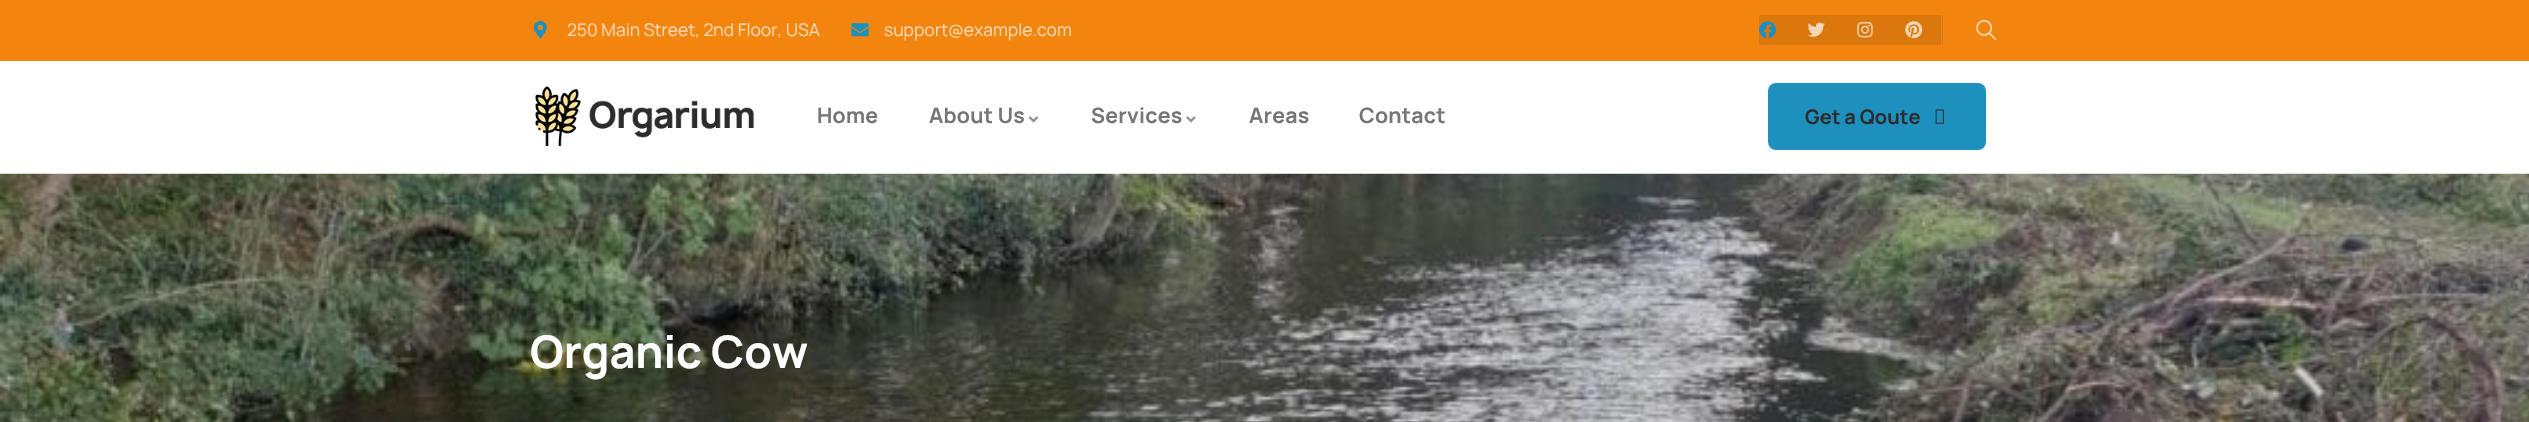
void draw(SkCanvas* canvas) {
    SkPaint paint;
    paint.setAntiAlias(true);
    auto face = [&](const char* family, int weight, float size, bool italic = false) {
        SkFontStyle style(weight, SkFontStyle::kNormal_Width,
            italic ? SkFontStyle::kItalic_Slant : SkFontStyle::kUpright_Slant);
        SkFont result(fontMgr->matchFamilyStyle(family, style), size);
        result.setSubpixel(true);
        return result;
    };
    auto write = [&](const char* s, float x, float y, const SkFont& font, SkColor color) {
        SkPaint ink(SkColor4f::FromColor(color));
        ink.setAntiAlias(true);
        canvas->drawString(s, x, y, font, ink);
    };
    auto writeSpaced = [&](const char* s, float x, float y, const SkFont& font, const SkPaint& ink, float letter, float word) {
        std::vector<SkGlyphID> glyphs(font.countText(s, strlen(s), SkTextEncoding::kUTF8));
        std::vector<float> xs(glyphs.size());
        font.textToGlyphs(s, strlen(s), SkTextEncoding::kUTF8, glyphs);
        font.getXPos(glyphs, xs, x);
        float extra = 0;
        for (size_t i = 0; i < glyphs.size(); i++) {
            xs[i] += extra;
            extra += letter + word * (glyphs[i] == font.unicharToGlyph(' '));
        }
        canvas->drawTextBlob(SkTextBlob::MakeFromPosHGlyphs(glyphs, xs, y, font), 0, 0, ink);
    };
    auto block = [&](float x, float y, float w, float h, SkColor color) {
        SkPaint ink(SkColor4f::FromColor(color));
        ink.setAntiAlias(true);
        canvas->drawRect(SkRect::MakeXYWH(x, y, w, h), ink);
    };
    auto card = [&](float x, float y, float w, float h, float radius, SkColor color) {
        SkPaint ink(SkColor4f::FromColor(color));
        ink.setAntiAlias(true);
        canvas->drawRoundRect(SkRect::MakeXYWH(x, y, w, h), radius, radius, ink);
    };
    auto paste = [&](const char* path, float x, float y, float w, float h) {
        auto image = SkImages::DeferredFromEncodedData(SkData::MakeFromFileName(path));
        canvas->drawImageRect(image, SkRect::MakeXYWH(x, y, w, h), SkSamplingOptions());
    };
    canvas->clear(SK_ColorWHITE);
    block(0, 0, 2529, 61, SkColorSetRGB(243, 133, 14));
    paste("pic1.png", 534, 20, 13, 19);
    auto kFont1 = face("Manrope", 400, 17.5f);
    write("250 Main Street, 2nd Floor, USA", 567, 36, kFont1, SkColorSetRGB(251, 218, 183));
    paste("pic2.png", 851, 23, 18, 14);
    write("support@example.com", 884, 36, kFont1, SkColorSetRGB(251, 218, 183));
    block(1759, 15, 184, 30, SkColorSetRGB(219, 120, 13));
    block(1941, 15, 1, 30, SkColorSetRGB(223, 134, 37));
    paste("pic3.png", 1759, 21, 17, 17);
    paste("pic4.png", 1807, 22, 18, 15);
    paste("pic5.png", 1857, 22, 16, 16);
    paste("pic6.png", 1905, 21, 18, 18);
    paste("pic7.png", 1976, 20, 21, 20);
    paste("pic12.png", 0, 173, 2529, 249);
    block(0, 173, 2529, 1, SkColorSetARGB(26, 255, 255, 255));
    paste("pic8.png", 535, 86, 220, 60);
    auto kFont2 = face("Manrope", 700, 21.25f);
    paint.setColor(SkColorSetRGB(118, 118, 118));
    writeSpaced("Home", 817, 123, kFont2, paint, 0.25f, 0);
    writeSpaced("About Us", 929, 123, kFont2, paint, 0.25f, 0);
    paste("pic9.png", 1028, 116, 11, 7);
    writeSpaced("Services", 1091, 123, kFont2, paint, 0.25f, 0);
    paste("pic10.png", 1186, 116, 10, 7);
    writeSpaced("Areas", 1249, 123, kFont2, paint, 0.25f, 0);
    writeSpaced("Contact", 1359, 123, kFont2, paint, 0.25f, 0);
    card(1768, 83, 218, 67, 8, SkColorSetRGB(30, 144, 189));
    auto kFont3 = face("Manrope", 700, 20);
    write("Get a Qoute", 1805, 124, kFont3, SkColorSetRGB(44, 44, 44));
    paste("pic11.png", 1935, 109, 9, 15);
    auto kFont4 = face("Manrope", 700, 45);
    write("Organic Cow", 530, 368, kFont4, SK_ColorWHITE);
}
